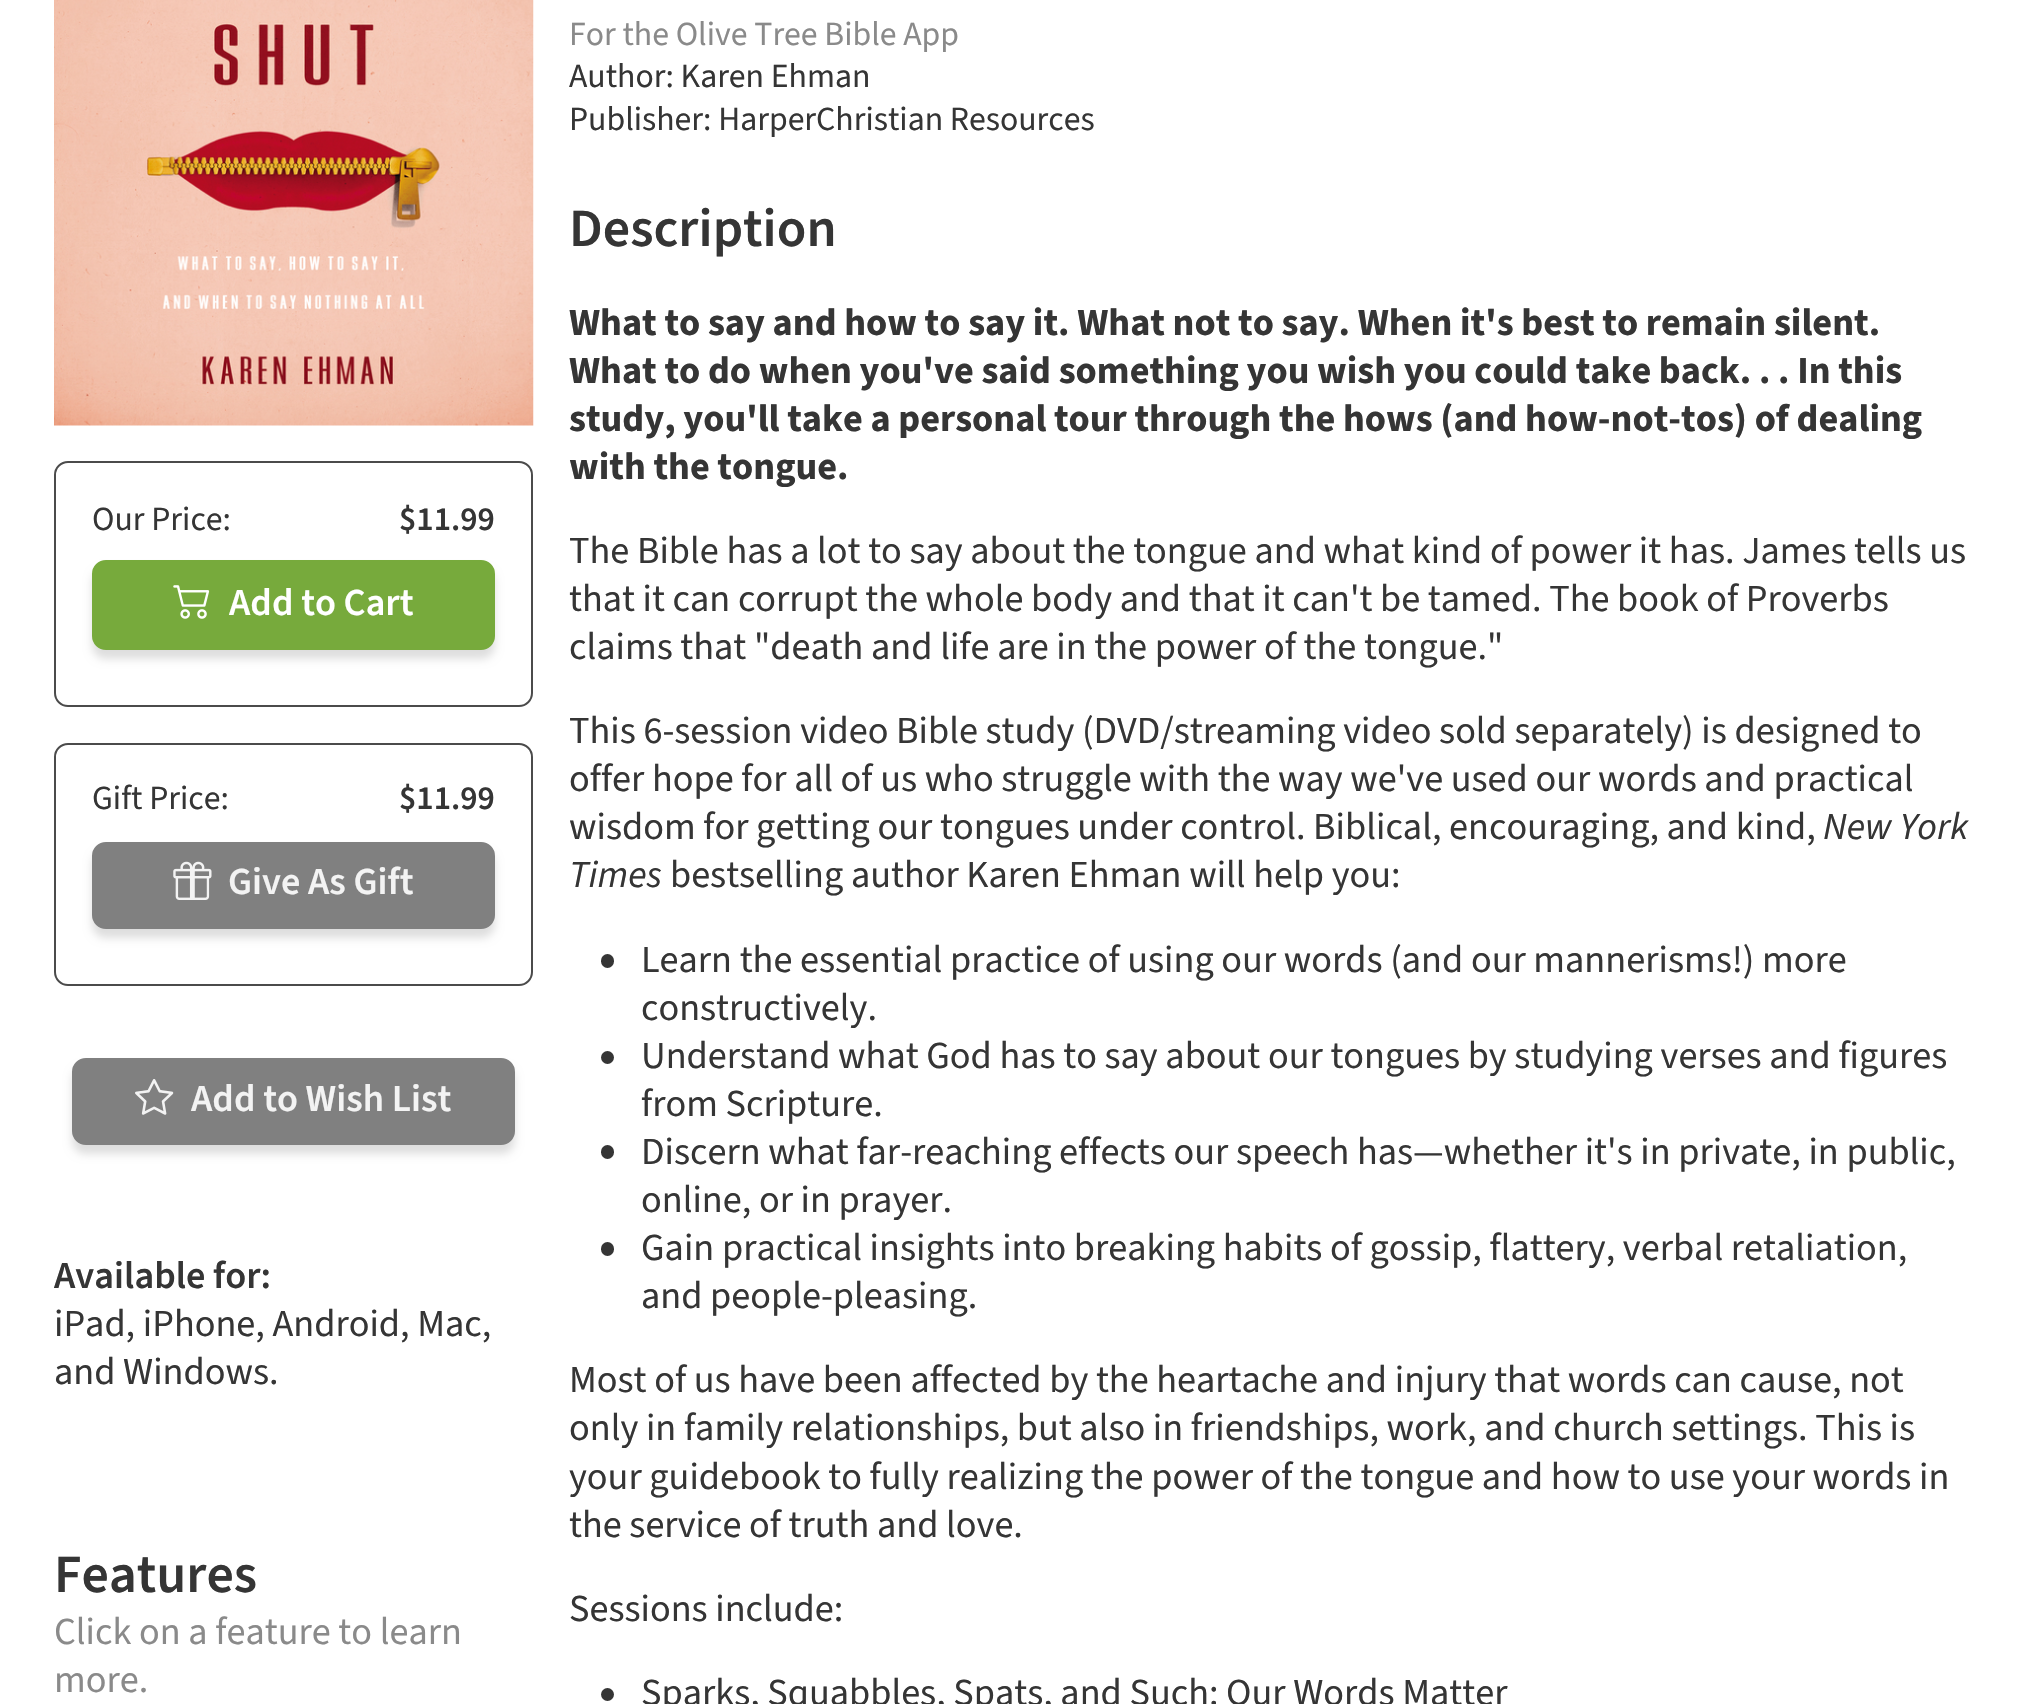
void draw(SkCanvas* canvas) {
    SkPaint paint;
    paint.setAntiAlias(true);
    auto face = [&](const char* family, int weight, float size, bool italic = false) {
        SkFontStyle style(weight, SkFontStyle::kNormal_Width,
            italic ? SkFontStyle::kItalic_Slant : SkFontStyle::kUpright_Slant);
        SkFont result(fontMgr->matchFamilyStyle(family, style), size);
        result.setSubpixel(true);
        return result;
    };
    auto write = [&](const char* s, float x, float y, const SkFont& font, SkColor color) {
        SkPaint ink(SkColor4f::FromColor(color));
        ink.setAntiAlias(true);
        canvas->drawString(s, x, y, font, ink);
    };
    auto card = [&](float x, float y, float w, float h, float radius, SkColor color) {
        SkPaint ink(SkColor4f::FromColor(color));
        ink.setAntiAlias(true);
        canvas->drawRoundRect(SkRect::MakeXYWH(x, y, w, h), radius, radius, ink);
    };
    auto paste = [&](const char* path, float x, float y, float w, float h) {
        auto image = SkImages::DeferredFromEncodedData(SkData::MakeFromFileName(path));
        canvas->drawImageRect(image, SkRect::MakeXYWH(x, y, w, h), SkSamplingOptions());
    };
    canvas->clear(SK_ColorWHITE);
    paste("pic1.png", 54, 0, 480, 426);
    paint.setStyle(SkPaint::kStroke_Style);
    paint.setStrokeWidth(2);
    paint.setColor(SkColorSetRGB(75, 75, 75));
    canvas->drawRoundRect(SkRect::MakeXYWH(55, 462, 477, 244), 13, 13, paint);
    auto kFont1 = face("Source Sans 3", 400, 33.75f);
    write("Our Price:", 92, 530, kFont1, SkColorSetRGB(53, 53, 53));
    auto kFont2 = face("Source Sans 3", 600, 33.75f);
    write("$11.99", 399, 530, kFont2, SkColorSetRGB(53, 53, 53));
    paint.setStyle(SkPaint::kFill_Style);
    paint.setColor(SkColorSetARGB(33, 0, 0, 0));
    paint.setMaskFilter(SkMaskFilter::MakeBlur(kNormal_SkBlurStyle, 4.5f));
    canvas->drawRoundRect(SkRect::MakeXYWH(92, 569, 403, 90), 14, 14, paint);
    paint.setMaskFilter(nullptr);
    paint.setColor(SkColorSetRGB(119, 170, 60));
    canvas->drawRoundRect(SkRect::MakeXYWH(93, 561, 401, 88), 13, 13, paint);
    paint.setStyle(SkPaint::kStroke_Style);
    canvas->drawRoundRect(SkRect::MakeXYWH(93, 561, 401, 88), 13, 13, paint);
    paste("pic2.png", 173, 585, 37, 34);
    auto kFont3 = face("Source Sans 3", 600, 38.25f);
    write("Add to Cart", 229, 615, kFont3, SK_ColorWHITE);
    paint.setColor(SkColorSetRGB(75, 75, 75));
    canvas->drawRoundRect(SkRect::MakeXYWH(55, 744, 477, 241), 13, 13, paint);
    write("Gift Price:", 92, 809, kFont1, SkColorSetRGB(53, 53, 53));
    write("$11.99", 399, 809, kFont2, SkColorSetRGB(53, 53, 53));
    paint.setStyle(SkPaint::kFill_Style);
    paint.setColor(SkColorSetARGB(33, 0, 0, 0));
    paint.setMaskFilter(SkMaskFilter::MakeBlur(kNormal_SkBlurStyle, 4.5f));
    canvas->drawRoundRect(SkRect::MakeXYWH(92, 851, 403, 87), 14, 14, paint);
    paint.setMaskFilter(nullptr);
    paint.setColor(SkColorSetRGB(128, 128, 128));
    canvas->drawRoundRect(SkRect::MakeXYWH(93, 843, 401, 85), 13, 13, paint);
    paint.setStyle(SkPaint::kStroke_Style);
    canvas->drawRoundRect(SkRect::MakeXYWH(93, 843, 401, 85), 13, 13, paint);
    paste("pic3.png", 173, 861, 39, 39);
    write("Give As Gift", 228, 894, kFont3, SkColorSetRGB(243, 243, 243));
    paint.setStyle(SkPaint::kFill_Style);
    paint.setColor(SkColorSetARGB(33, 0, 0, 0));
    paint.setMaskFilter(SkMaskFilter::MakeBlur(kNormal_SkBlurStyle, 4.5f));
    canvas->drawRoundRect(SkRect::MakeXYWH(72, 1067, 443, 87), 14, 14, paint);
    paint.setMaskFilter(nullptr);
    paint.setColor(SkColorSetRGB(128, 128, 128));
    canvas->drawRoundRect(SkRect::MakeXYWH(73, 1059, 441, 85), 13, 13, paint);
    paint.setStyle(SkPaint::kStroke_Style);
    canvas->drawRoundRect(SkRect::MakeXYWH(73, 1059, 441, 85), 13, 13, paint);
    paste("pic4.png", 135, 1079, 39, 36);
    write("Add to Wish List", 191, 1111, kFont3, SkColorSetRGB(243, 243, 243));
    write("Available for:", 54, 1288, kFont3, SkColorSetRGB(53, 53, 53));
    auto kFont4 = face("Source Sans 3", 400, 38.25f);
    write("iPad, iPhone, Android, Mac,", 54, 1336, kFont4, SkColorSetRGB(53, 53, 53));
    write("and Windows.", 54, 1384, kFont4, SkColorSetRGB(53, 53, 53));
    auto kFont5 = face("Source Sans 3", 600, 54);
    write("Features", 54, 1592, kFont5, SkColorSetRGB(53, 53, 53));
    write("Click on a feature to learn", 54, 1644, kFont4, SkColorSetRGB(138, 138, 138));
    write("more.", 54, 1692, kFont4, SkColorSetRGB(138, 138, 138));
    write("For the Olive Tree Bible App", 569, 45, kFont1, SkColorSetRGB(138, 138, 138));
    write("Author: Karen Ehman", 569, 87, kFont1, SkColorSetRGB(53, 53, 53));
    write("Publisher: HarperChristian Resources", 569, 130, kFont1, SkColorSetRGB(53, 53, 53));
    write("Description", 569, 246, kFont5, SkColorSetRGB(53, 53, 53));
    auto kFont6 = face("Source Sans 3", 700, 38.25f);
    write("What to say and how to say it. What not to say. When it's best to remain silent.", 569, 335, kFont6, SkColorSetRGB(53, 53, 53));
    write("What to do when you've said something you wish you could take back. . . In this", 569, 383, kFont6, SkColorSetRGB(53, 53, 53));
    write("study, you'll take a personal tour through the hows (and how-not-tos) of dealing", 569, 431, kFont6, SkColorSetRGB(53, 53, 53));
    write("with the tongue.", 569, 479, kFont6, SkColorSetRGB(53, 53, 53));
    write("The Bible has a lot to say about the tongue and what kind of power it has. James tells us", 569, 563, kFont4, SkColorSetRGB(53, 53, 53));
    write("that it can corrupt the whole body and that it can't be tamed. The book of Proverbs", 569, 611, kFont4, SkColorSetRGB(53, 53, 53));
    write("claims that \"death and life are in the power of the tongue.\"", 569, 659, kFont4, SkColorSetRGB(53, 53, 53));
    write("This 6-session video Bible study (DVD/streaming video sold separately) is designed to", 569, 743, kFont4, SkColorSetRGB(53, 53, 53));
    write("offer hope for all of us who struggle with the way we've used our words and practical", 569, 791, kFont4, SkColorSetRGB(53, 53, 53));
    write("wisdom for getting our tongues under control. Biblical, encouraging, and kind,", 569, 839, kFont4, SkColorSetRGB(53, 53, 53));
    auto kFont7 = face("Source Sans 3", 400, 38.25f, true);
    write("New York", 1823, 839, kFont7, SkColorSetRGB(53, 53, 53));
    write("Times", 569, 887, kFont7, SkColorSetRGB(53, 53, 53));
    write("bestselling author Karen Ehman will help you:", 670, 887, kFont4, SkColorSetRGB(53, 53, 53));
    card(601, 954, 13, 14, 6.5f, SkColorSetRGB(53, 53, 53));
    write("Learn the essential practice of using our words (and our mannerisms!) more", 641, 972, kFont4, SkColorSetRGB(53, 53, 53));
    write("constructively.", 641, 1020, kFont4, SkColorSetRGB(53, 53, 53));
    paint.setStyle(SkPaint::kFill_Style);
    paint.setColor(SkColorSetRGB(53, 53, 53));
    canvas->drawCircle(607.5f, 1057.5f, 6.5f, paint);
    write("Understand what God has to say about our tongues by studying verses and figures", 641, 1068, kFont4, SkColorSetRGB(53, 53, 53));
    write("from Scripture.", 641, 1116, kFont4, SkColorSetRGB(53, 53, 53));
    card(601, 1145, 13, 14, 6.5f, SkColorSetRGB(53, 53, 53));
    write("Discern what far-reaching effects our speech has—whether it's in private, in public,", 641, 1164, kFont4, SkColorSetRGB(53, 53, 53));
    write("online, or in prayer.", 641, 1212, kFont4, SkColorSetRGB(53, 53, 53));
    card(601, 1242, 13, 14, 6.5f, SkColorSetRGB(53, 53, 53));
    write("Gain practical insights into breaking habits of gossip, flattery, verbal retaliation,", 641, 1260, kFont4, SkColorSetRGB(53, 53, 53));
    write("and people-pleasing.", 641, 1308, kFont4, SkColorSetRGB(53, 53, 53));
    write("Most of us have been affected by the heartache and injury that words can cause, not", 569, 1392, kFont4, SkColorSetRGB(53, 53, 53));
    write("only in family relationships, but also in friendships, work, and church settings. This is", 569, 1440, kFont4, SkColorSetRGB(53, 53, 53));
    write("your guidebook to fully realizing the power of the tongue and how to use your words in", 569, 1489, kFont4, SkColorSetRGB(53, 53, 53));
    write("the service of truth and love.", 569, 1537, kFont4, SkColorSetRGB(53, 53, 53));
    write("Sessions include:", 569, 1621, kFont4, SkColorSetRGB(53, 53, 53));
    canvas->drawCircle(607.5f, 1694.5f, 6.5f, paint);
    write("Sparks, Squabbles, Spats, and Such: Our Words Matter", 641, 1705, kFont4, SkColorSetRGB(53, 53, 53));
}
